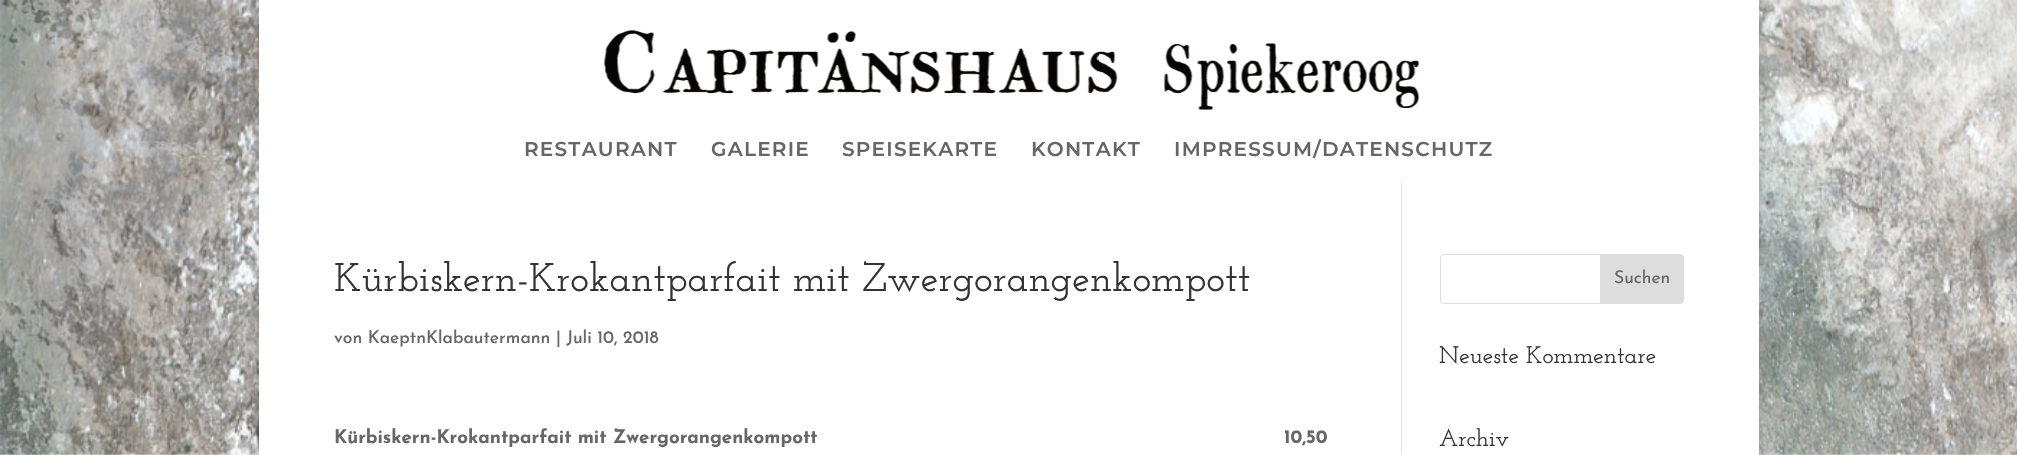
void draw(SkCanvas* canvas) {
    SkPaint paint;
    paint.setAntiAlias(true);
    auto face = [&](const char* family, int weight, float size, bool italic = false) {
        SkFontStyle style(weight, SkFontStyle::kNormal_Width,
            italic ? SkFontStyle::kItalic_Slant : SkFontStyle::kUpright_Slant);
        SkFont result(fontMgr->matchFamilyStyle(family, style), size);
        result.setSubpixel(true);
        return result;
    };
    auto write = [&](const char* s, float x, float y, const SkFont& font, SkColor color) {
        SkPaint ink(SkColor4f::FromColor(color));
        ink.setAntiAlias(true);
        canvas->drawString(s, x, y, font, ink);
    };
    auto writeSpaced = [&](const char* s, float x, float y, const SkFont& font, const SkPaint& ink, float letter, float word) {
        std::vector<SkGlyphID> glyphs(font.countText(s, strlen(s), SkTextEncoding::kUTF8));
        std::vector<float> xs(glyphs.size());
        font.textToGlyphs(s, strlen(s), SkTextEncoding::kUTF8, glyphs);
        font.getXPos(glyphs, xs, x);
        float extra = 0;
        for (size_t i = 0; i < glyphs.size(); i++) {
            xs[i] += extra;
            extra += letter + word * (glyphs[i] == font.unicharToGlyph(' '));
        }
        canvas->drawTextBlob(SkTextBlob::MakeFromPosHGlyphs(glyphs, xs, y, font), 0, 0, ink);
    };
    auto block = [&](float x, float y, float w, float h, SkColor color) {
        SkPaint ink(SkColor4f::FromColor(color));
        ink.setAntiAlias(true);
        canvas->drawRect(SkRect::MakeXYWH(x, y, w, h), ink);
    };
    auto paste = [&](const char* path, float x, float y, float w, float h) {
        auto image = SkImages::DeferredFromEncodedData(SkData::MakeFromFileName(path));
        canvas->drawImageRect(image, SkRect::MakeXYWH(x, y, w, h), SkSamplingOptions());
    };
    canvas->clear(SK_ColorWHITE);
    paste("pic1.png", 0, 0, 2017, 455);
    paint.setColor(SkColorSetARGB(51, 0, 0, 0));
    paint.setMaskFilter(SkMaskFilter::MakeBlur(kNormal_SkBlurStyle, 6));
    canvas->drawRect(SkRect::MakeXYWH(259, -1, 1500, 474), paint);
    paint.setMaskFilter(nullptr);
    block(259, 0, 1500, 455, SK_ColorWHITE);
    block(1401, 0, 1, 455, SkColorSetRGB(226, 226, 226));
    block(1401, 0, 1, 183, SkColorSetARGB(230, 255, 255, 255));
    paste("pic2.png", 603, 30, 817, 81);
    auto kFont1 = face("Montserrat", 100, 20);
    paint.setColor(SkColorSetRGB(102, 102, 102));
    writeSpaced("RESTAURANT", 524, 156, kFont1, paint, 1.25f, 0);
    writeSpaced("GALERIE", 711, 156, kFont1, paint, 1.25f, 0);
    writeSpaced("SPEISEKARTE", 842, 156, kFont1, paint, 1.25f, 0);
    writeSpaced("KONTAKT", 1031, 156, kFont1, paint, 1.25f, 0);
    writeSpaced("IMPRESSUM/DATENSCHUTZ", 1174, 156, kFont1, paint, 1.25f, 0);
    auto kFont2 = face("Josefin Slab", 100, 40);
    write("Kürbiskern-Krokantparfait mit Zwergorangenkompott", 334, 291, kFont2, SkColorSetRGB(51, 51, 51));
    auto kFont3 = face("Josefin Sans", 500, 17.5f);
    write("von KaeptnKlabautermann | Juli 10, 2018", 334, 343, kFont3, SkColorSetRGB(102, 102, 102));
    auto kFont4 = face("Josefin Sans", 100, 18.75f);
    write("Kürbiskern-Krokantparfait mit Zwergorangenkompott", 334, 443, kFont4, SkColorSetRGB(102, 102, 102));
    write("10,50", 1284, 443, kFont4, SkColorSetRGB(102, 102, 102));
    paint.setStyle(SkPaint::kStroke_Style);
    paint.setStrokeWidth(1);
    paint.setColor(SkColorSetRGB(221, 221, 221));
    canvas->drawRoundRect(SkRect::MakeXYWH(1440.5f, 254.5f, 243, 49), 3.5f, 3.5f, paint);
    paint.setStyle(SkPaint::kFill_Style);
    canvas->drawPath(SkPathBuilder().moveTo(1600.5f, 254.5f).lineTo(1680, 254.5f).cubicTo(1682, 254.5f, 1683.5f, 256, 1683.5f, 258).lineTo(1683.5f, 300).cubicTo(1683.5f, 302, 1682, 303.5f, 1680, 303.5f).lineTo(1600.5f, 303.5f).close().detach(), paint);
    paint.setStyle(SkPaint::kStroke_Style);
    canvas->drawPath(SkPathBuilder().moveTo(1600.5f, 254.5f).lineTo(1680, 254.5f).cubicTo(1682, 254.5f, 1683.5f, 256, 1683.5f, 258).lineTo(1683.5f, 300).cubicTo(1683.5f, 302, 1682, 303.5f, 1680, 303.5f).lineTo(1600.5f, 303.5f).close().detach(), paint);
    auto kFont5 = face("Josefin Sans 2", 100, 17.5f);
    write("Suchen", 1614, 283, kFont5, SkColorSetRGB(102, 102, 102));
    auto kFont6 = face("Josefin Slab", 100, 23.75f);
    write("Neueste Kommentare", 1439, 363, kFont6, SkColorSetRGB(51, 51, 51));
    write("Archiv", 1439, 446, kFont6, SkColorSetRGB(51, 51, 51));
}
